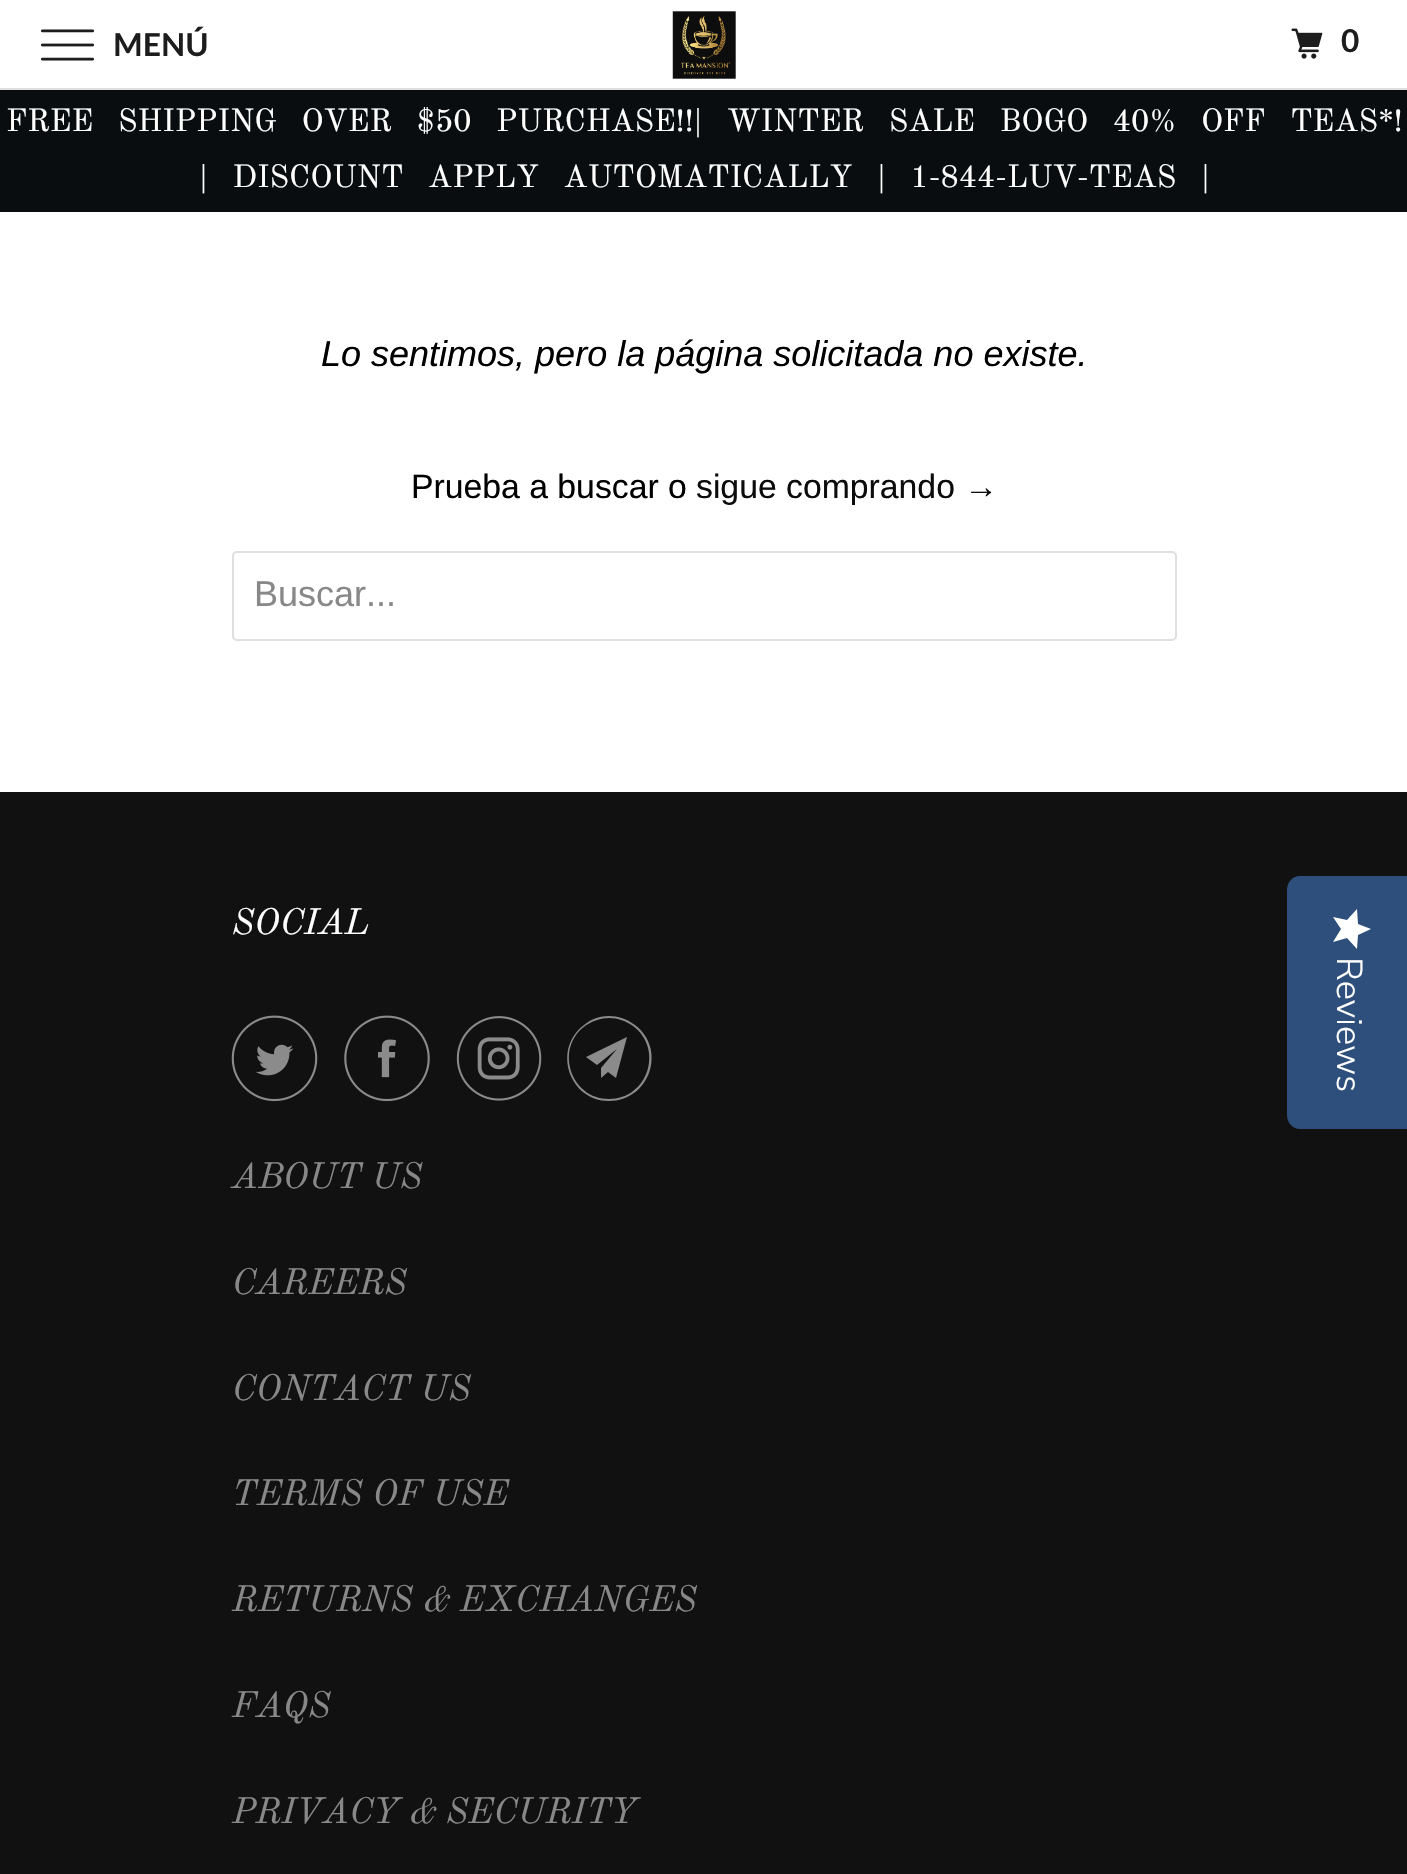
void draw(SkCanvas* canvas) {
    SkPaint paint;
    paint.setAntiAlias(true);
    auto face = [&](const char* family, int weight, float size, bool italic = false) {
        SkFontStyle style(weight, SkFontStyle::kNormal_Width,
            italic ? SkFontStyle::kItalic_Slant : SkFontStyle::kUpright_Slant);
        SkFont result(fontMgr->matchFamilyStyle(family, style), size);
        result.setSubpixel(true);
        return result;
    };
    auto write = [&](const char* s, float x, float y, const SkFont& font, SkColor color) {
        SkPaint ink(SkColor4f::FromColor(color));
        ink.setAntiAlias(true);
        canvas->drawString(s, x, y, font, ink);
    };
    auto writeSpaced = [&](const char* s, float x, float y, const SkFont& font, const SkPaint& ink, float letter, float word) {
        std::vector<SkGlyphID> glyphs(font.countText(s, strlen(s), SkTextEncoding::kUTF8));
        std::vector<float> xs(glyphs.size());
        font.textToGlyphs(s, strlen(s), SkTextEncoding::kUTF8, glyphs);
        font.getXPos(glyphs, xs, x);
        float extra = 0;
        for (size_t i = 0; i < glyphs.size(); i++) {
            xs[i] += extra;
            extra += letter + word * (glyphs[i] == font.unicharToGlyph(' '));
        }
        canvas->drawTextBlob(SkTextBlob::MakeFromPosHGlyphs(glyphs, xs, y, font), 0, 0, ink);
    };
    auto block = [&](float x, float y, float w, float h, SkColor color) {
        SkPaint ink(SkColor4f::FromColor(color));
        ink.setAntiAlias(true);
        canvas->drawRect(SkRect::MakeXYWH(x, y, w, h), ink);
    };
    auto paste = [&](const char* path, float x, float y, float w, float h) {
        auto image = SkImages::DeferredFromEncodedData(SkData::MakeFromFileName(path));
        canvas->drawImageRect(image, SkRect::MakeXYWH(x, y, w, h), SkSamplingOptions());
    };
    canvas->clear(SK_ColorWHITE);
    block(0, 88, 1407, 2, SkColorSetRGB(223, 223, 223));
    paste("pic1.png", 40, 29, 55, 32);
    auto kFont1 = face("Lato", 700, 31.5f);
    write("MENÚ", 113, 56, kFont1, SkColorSetRGB(29, 29, 29));
    paste("pic2.png", 672, 11, 64, 68);
    paste("pic3.png", 1291, 28, 32, 31);
    write("0", 1341, 52, kFont1, SkColorSetRGB(29, 29, 29));
    block(0, 90, 1407, 122, SkColorSetRGB(9, 13, 15));
    auto kFont2 = face("Old Standard TT", 400, 31.5f);
    paint.setColor(SK_ColorWHITE);
    writeSpaced("FREE SHIPPING OVER $50 PURCHASE!!| WINTER SALE BOGO 40% OFF TEAS*!", 6, 131, kFont2, paint, 0, 15.75f);
    writeSpaced("| DISCOUNT APPLY AUTOMATICALLY | 1-844-LUV-TEAS |", 199, 187, kFont2, paint, 0, 15.75f);
    auto kFont3 = face("Liberation Sans", 400, 36, true);
    write("Lo sentimos, pero la página solicitada no existe.", 321, 366, kFont3, SK_ColorBLACK);
    auto kFont4 = face("Liberation Sans", 400, 33.75f);
    write("Prueba a buscar o", 411, 498, kFont4, SK_ColorBLACK);
    write("sigue comprando →", 696, 498, kFont4, SkColorSetRGB(13, 12, 12));
    paint.setStyle(SkPaint::kStroke_Style);
    paint.setStrokeWidth(2);
    paint.setColor(SkColorSetRGB(223, 223, 223));
    canvas->drawRoundRect(SkRect::MakeXYWH(233, 552, 943, 88), 4, 4, paint);
    auto kFont5 = face("Liberation Sans", 400, 36);
    write("Buscar...", 254, 606, kFont5, SkColorSetRGB(136, 136, 136));
    block(0, 792, 1407, 1082, SkColorSetRGB(17, 17, 17));
    auto kFont6 = face("Old Standard TT", 400, 36, true);
    write("SOCIAL", 232, 934, kFont6, SK_ColorWHITE);
    paste("pic4.png", 231, 1015, 87, 87);
    paste("pic5.png", 344, 1015, 86, 87);
    paste("pic6.png", 456, 1016, 86, 85);
    paint.setStyle(SkPaint::kFill_Style);
    paint.setColor(SkColorSetRGB(139, 139, 139));
    canvas->drawPath(SkPathBuilder().moveTo(616, 1078).lineTo(608, 1072).lineTo(601, 1078).lineTo(601, 1068).lineTo(617, 1049).lineTo(597, 1065).lineTo(586, 1057).lineTo(627, 1037).close().moveTo(609, 1018).cubicTo(601, 1018, 592, 1021, 585, 1026).cubicTo(554, 1049, 571, 1099, 609, 1099).cubicTo(648, 1099, 664, 1049, 633, 1026).cubicTo(626, 1021, 618, 1018, 609, 1018).close().moveTo(609, 1101).cubicTo(569, 1101, 552, 1049, 584, 1025).cubicTo(591, 1019, 600, 1016, 609, 1016).cubicTo(618, 1016, 627, 1019, 635, 1025).cubicTo(667, 1049, 650, 1101, 609, 1101).close().detach(), paint);
    write("ABOUT US", 232, 1188, kFont6, SkColorSetRGB(136, 136, 136));
    write("CAREERS", 232, 1294, kFont6, SkColorSetRGB(136, 136, 136));
    write("CONTACT US", 232, 1400, kFont6, SkColorSetRGB(136, 136, 136));
    write("TERMS OF USE", 232, 1505, kFont6, SkColorSetRGB(136, 136, 136));
    write("RETURNS & EXCHANGES", 232, 1611, kFont6, SkColorSetRGB(136, 136, 136));
    write("FAQS", 232, 1717, kFont6, SkColorSetRGB(136, 136, 136));
    write("PRIVACY & SECURITY", 232, 1823, kFont6, SkColorSetRGB(136, 136, 136));
    paint.setColor(SkColorSetRGB(46, 79, 124));
    canvas->drawPath(SkPathBuilder().moveTo(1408, 876).lineTo(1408, 1129).lineTo(1300, 1129).cubicTo(1293, 1129, 1287, 1123, 1287, 1115).lineTo(1287, 890).cubicTo(1287, 882, 1293, 876, 1300, 876).close().detach(), paint);
    {
        const SkColor colors[] = {SK_ColorWHITE, SkColorSetRGB(234, 234, 234)};
        const float stops[] = {1, 1};
        const SkPoint ends[] = {{1371, 909}, {1371, 949}};
        paint.setShader(SkGradientShader::MakeLinear(ends, colors, stops, 2, SkTileMode::kClamp));
        paint.setAlpha(255);
    }
    canvas->drawPath(SkPathBuilder().moveTo(1341, 929).lineTo(1333, 942).lineTo(1347, 938).lineTo(1357, 949).lineTo(1358, 935).lineTo(1371, 929).lineTo(1358, 924).lineTo(1357, 909).lineTo(1347, 920).lineTo(1333, 917).close().detach(), paint);
    auto kFont7 = face("Nunito Sans", 300, 36);
    canvas->save();
    canvas->rotate(90, 1337, 957);
    write("Reviews", 1337, 957, kFont7, SK_ColorWHITE);
    canvas->restore();
}
